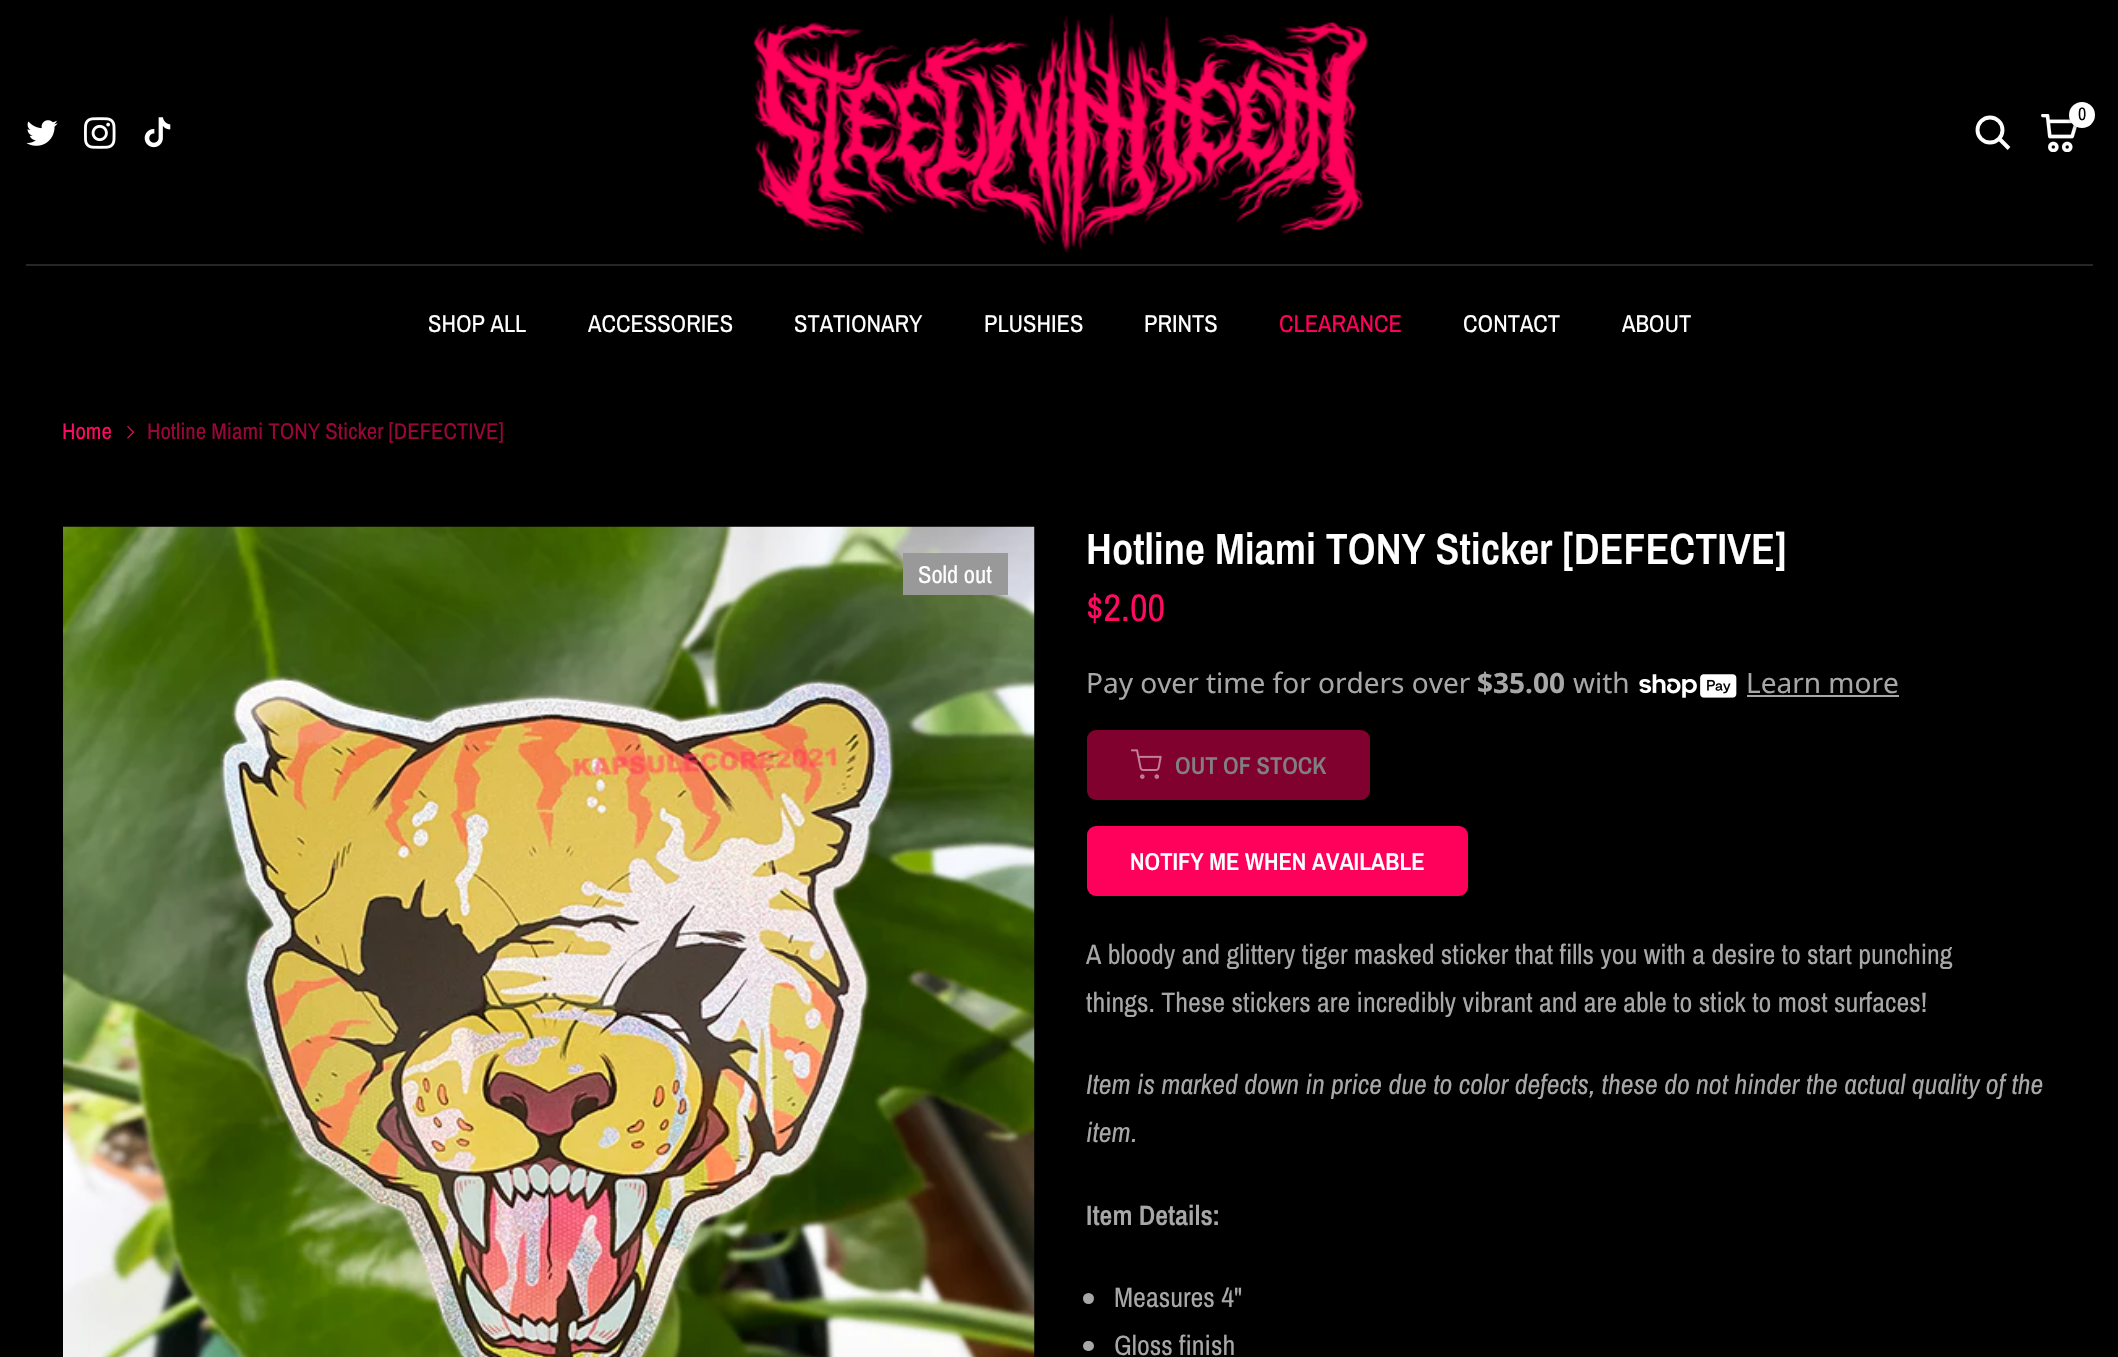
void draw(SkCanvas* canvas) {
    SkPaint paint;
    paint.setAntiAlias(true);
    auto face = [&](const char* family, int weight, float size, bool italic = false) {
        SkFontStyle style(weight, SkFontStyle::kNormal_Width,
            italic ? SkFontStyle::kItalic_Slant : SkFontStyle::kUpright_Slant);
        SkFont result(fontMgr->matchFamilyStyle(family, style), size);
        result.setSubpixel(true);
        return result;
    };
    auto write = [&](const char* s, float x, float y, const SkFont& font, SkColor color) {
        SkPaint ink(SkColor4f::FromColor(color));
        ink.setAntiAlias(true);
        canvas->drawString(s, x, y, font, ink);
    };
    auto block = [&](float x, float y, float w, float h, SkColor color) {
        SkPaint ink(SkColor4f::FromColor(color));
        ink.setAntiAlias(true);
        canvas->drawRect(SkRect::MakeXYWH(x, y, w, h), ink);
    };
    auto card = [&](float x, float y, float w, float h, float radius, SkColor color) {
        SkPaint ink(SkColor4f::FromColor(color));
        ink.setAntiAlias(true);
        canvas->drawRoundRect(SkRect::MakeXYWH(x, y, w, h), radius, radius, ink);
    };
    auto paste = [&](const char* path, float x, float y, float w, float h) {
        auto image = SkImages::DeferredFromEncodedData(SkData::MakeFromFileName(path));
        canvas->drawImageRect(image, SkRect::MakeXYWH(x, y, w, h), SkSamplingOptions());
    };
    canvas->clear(SK_ColorBLACK);
    block(26, 264, 2067, 2, SkColorSetRGB(38, 38, 38));
    paste("pic1.png", 753, 14, 615, 238);
    paint.setStyle(SkPaint::kStroke_Style);
    paint.setStrokeWidth(3.9f);
    paint.setColor(SK_ColorWHITE);
    canvas->drawCircle(1990, 130, 12.5f, paint);
    canvas->drawPath(SkPathBuilder().moveTo(1999, 138.5f).lineTo(2009, 148.5f).detach(), paint);
    paste("pic2.png", 2041, 114, 36, 38);
    paint.setStyle(SkPaint::kFill_Style);
    paint.setColor(SkColorSetARGB(77, 0, 0, 0));
    paint.setMaskFilter(SkMaskFilter::MakeBlur(kNormal_SkBlurStyle, 2.5f));
    canvas->drawRoundRect(SkRect::MakeXYWH(2070, 103, 27, 27), 13.5f, 13.5f, paint);
    paint.setMaskFilter(nullptr);
    paint.setColor(SK_ColorWHITE);
    canvas->drawCircle(2082, 115, 13, paint);
    auto kFont1 = face("Archivo Narrow", 400, 18);
    write("0", 2078, 120, kFont1, SK_ColorBLACK);
    paste("pic3.png", 26, 120, 32, 26);
    paste("pic4.png", 84, 117, 32, 32);
    paste("pic5.png", 144, 117, 27, 31);
    auto kFont2 = face("Archivo Narrow", 400, 24.5f);
    write("SHOP ALL", 428, 332, kFont2, SK_ColorWHITE);
    write("ACCESSORIES", 588, 332, kFont2, SK_ColorWHITE);
    write("STATIONARY", 794, 332, kFont2, SK_ColorWHITE);
    write("PLUSHIES", 984, 332, kFont2, SK_ColorWHITE);
    write("PRINTS", 1144, 332, kFont2, SK_ColorWHITE);
    write("CLEARANCE", 1279, 332, kFont2, SkColorSetRGB(255, 0, 91));
    write("CONTACT", 1463, 332, kFont2, SK_ColorWHITE);
    write("ABOUT", 1622, 332, kFont2, SK_ColorWHITE);
    auto kFont3 = face("Archivo Narrow", 400, 22.75f);
    write("Home", 62, 439, kFont3, SkColorSetRGB(255, 10, 97));
    paste("pic6.png", 127, 425, 8, 14);
    write("Hotline Miami TONY Sticker [DEFECTIVE]", 147, 439, kFont3, SkColorSetRGB(153, 6, 58));
    paste("pic7.png", 63, 526, 972, 831);
    block(903, 553, 105, 42, SkColorSetRGB(153, 153, 153));
    write("Sold out", 918, 583, kFont2, SK_ColorWHITE);
    auto kFont4 = face("Archivo Narrow", 600, 43.75f);
    write("Hotline Miami TONY Sticker [DEFECTIVE]", 1086, 564, kFont4, SK_ColorWHITE);
    auto kFont5 = face("Archivo Narrow", 400, 38.5f);
    write("$2.00", 1086, 621, kFont5, SkColorSetRGB(255, 10, 97));
    auto kFont6 = face("Noto Sans", 400, 28);
    write("Pay over time for orders over", 1086, 693, kFont6, SkColorSetRGB(167, 167, 167));
    auto kFont7 = face("Noto Sans", 700, 28);
    write("$35.00", 1477, 693, kFont7, SkColorSetRGB(167, 167, 167));
    write("with", 1573, 693, kFont6, SkColorSetRGB(167, 167, 167));
    paste("pic8.png", 1639, 674, 98, 24);
    write("Learn more", 1746, 693, kFont6, SkColorSetRGB(167, 167, 167));
    block(1747, 695, 152, 2, SkColorSetRGB(167, 167, 167));
    card(1087, 730, 283, 70, 9, SkColorSetRGB(128, 0, 46));
    paste("pic9.png", 1131, 749, 31, 30);
    auto kFont8 = face("Archivo Narrow", 600, 24.5f);
    write("OUT OF STOCK", 1175, 774, kFont8, SkColorSetRGB(128, 128, 128));
    card(1087, 826, 381, 70, 9, SkColorSetRGB(255, 0, 91));
    write("NOTIFY ME WHEN AVAILABLE", 1130, 870, kFont8, SK_ColorWHITE);
    auto kFont9 = face("Archivo Narrow", 400, 28);
    write("A bloody and glittery tiger masked sticker that fills you with a desire to start punching", 1086, 964, kFont9, SkColorSetRGB(167, 167, 167));
    write("things. These stickers are incredibly vibrant and are able to stick to most surfaces!", 1086, 1012, kFont9, SkColorSetRGB(167, 167, 167));
    auto kFont10 = face("Archivo Narrow", 400, 28, true);
    write("Item is marked down in price due to color defects, these do not hinder the actual quality of the", 1086, 1094, kFont10, SkColorSetRGB(167, 167, 167));
    write("item.", 1086, 1142, kFont10, SkColorSetRGB(167, 167, 167));
    auto kFont11 = face("Archivo Narrow", 600, 28);
    write("Item Details:", 1086, 1225, kFont11, SkColorSetRGB(167, 167, 167));
    paint.setColor(SkColorSetRGB(167, 167, 167));
    canvas->drawCircle(1088.5f, 1298.5f, 5.5f, paint);
    write("Measures 4\"", 1114, 1307, kFont9, SkColorSetRGB(167, 167, 167));
    card(1083, 1341, 11, 10, 5, SkColorSetRGB(167, 167, 167));
    write("Gloss finish", 1114, 1355, kFont9, SkColorSetRGB(167, 167, 167));
}
